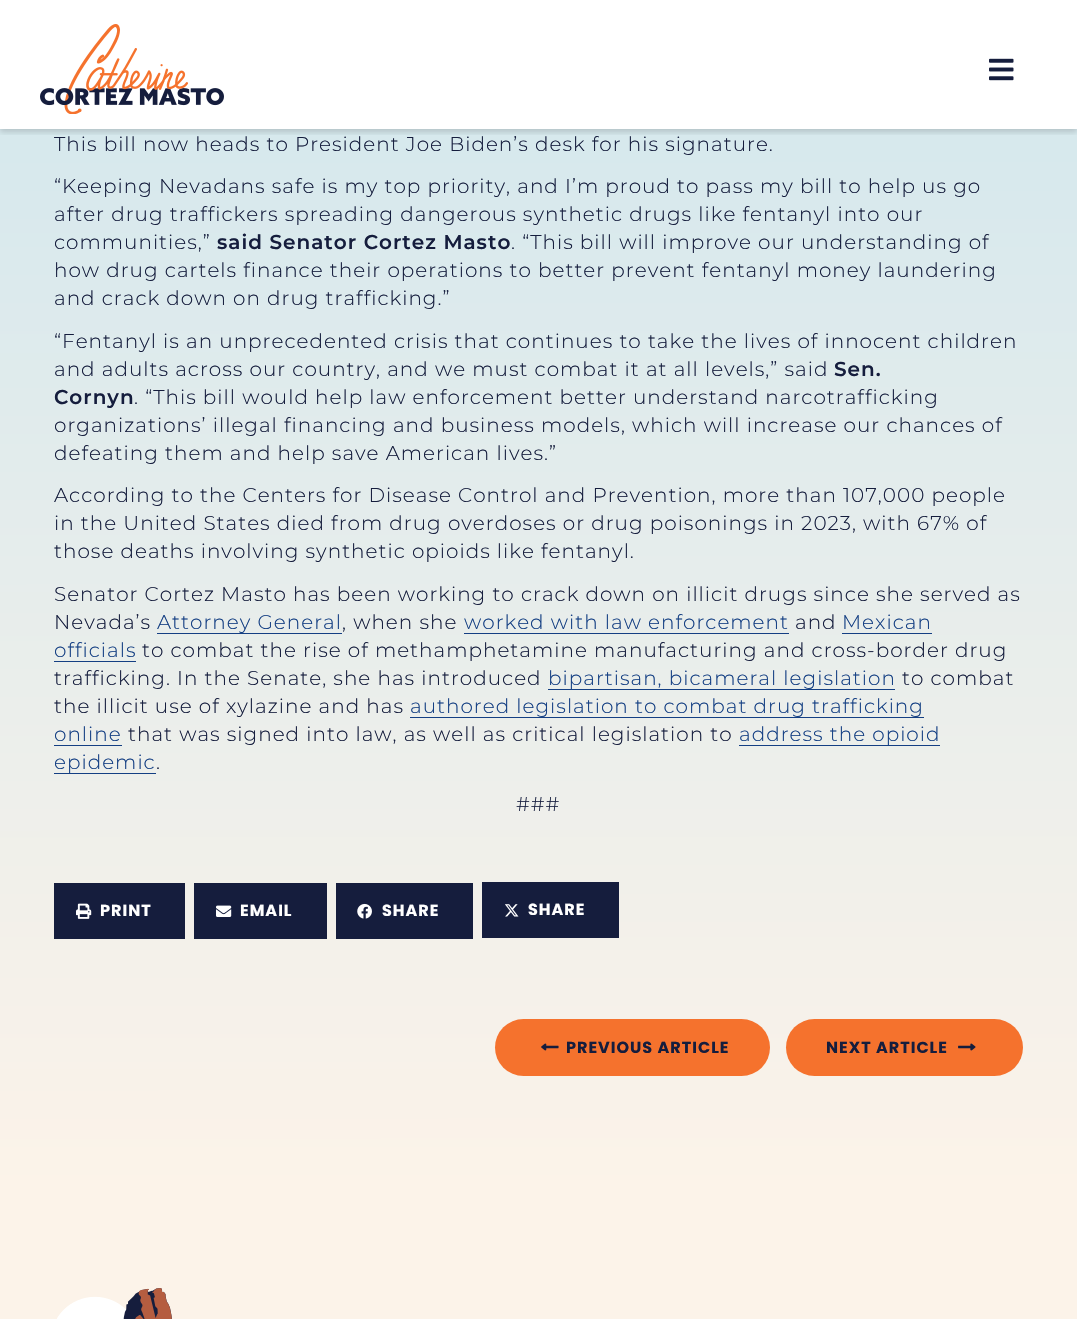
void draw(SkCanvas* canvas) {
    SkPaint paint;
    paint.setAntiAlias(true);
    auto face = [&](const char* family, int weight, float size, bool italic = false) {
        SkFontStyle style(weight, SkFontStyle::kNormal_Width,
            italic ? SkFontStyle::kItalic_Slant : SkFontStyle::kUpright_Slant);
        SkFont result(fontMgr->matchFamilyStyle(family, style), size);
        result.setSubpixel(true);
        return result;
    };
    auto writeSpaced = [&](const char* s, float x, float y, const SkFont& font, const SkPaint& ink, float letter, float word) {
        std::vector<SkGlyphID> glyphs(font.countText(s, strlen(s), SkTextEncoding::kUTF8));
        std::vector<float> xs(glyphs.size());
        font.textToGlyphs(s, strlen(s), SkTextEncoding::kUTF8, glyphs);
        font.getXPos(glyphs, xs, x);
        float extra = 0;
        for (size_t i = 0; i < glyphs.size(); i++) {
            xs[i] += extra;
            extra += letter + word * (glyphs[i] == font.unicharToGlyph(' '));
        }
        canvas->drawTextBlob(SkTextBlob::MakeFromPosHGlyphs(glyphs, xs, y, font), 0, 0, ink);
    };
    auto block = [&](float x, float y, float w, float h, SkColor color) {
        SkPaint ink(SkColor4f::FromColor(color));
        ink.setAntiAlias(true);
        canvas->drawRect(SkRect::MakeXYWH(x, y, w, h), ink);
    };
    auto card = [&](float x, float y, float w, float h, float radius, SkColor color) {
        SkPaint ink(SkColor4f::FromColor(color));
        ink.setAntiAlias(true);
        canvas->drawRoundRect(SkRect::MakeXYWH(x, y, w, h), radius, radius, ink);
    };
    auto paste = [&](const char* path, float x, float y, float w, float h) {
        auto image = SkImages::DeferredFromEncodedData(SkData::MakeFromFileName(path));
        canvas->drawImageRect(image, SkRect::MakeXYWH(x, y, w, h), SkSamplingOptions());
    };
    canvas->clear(SK_ColorWHITE);
    {
        const SkColor colors[] = {SkColorSetRGB(184, 224, 241), SkColorSetRGB(252, 243, 233)};
        const float stops[] = {0, 0.75f};
        const SkPoint ends[] = {{538, -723}, {539, 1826}};
        paint.setShader(SkGradientShader::MakeLinear(ends, colors, stops, 2, SkTileMode::kClamp));
        paint.setAlpha(255);
    }
    canvas->drawRect(SkRect::MakeXYWH(0, 129, 1077, 1190), paint);
    canvas->save();
    canvas->clipRect(SkRect::MakeXYWH(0, 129, 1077, 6));
    paint.setShader(nullptr);
    paint.setColor(SkColorSetARGB(41, 0, 0, 0));
    paint.setMaskFilter(SkMaskFilter::MakeBlur(kNormal_SkBlurStyle, 3));
    canvas->drawRect(SkRect::MakeXYWH(0, 3, 1077, 129), paint);
    paint.setMaskFilter(nullptr);
    canvas->restore();
    paste("pic1.png", 40, 24, 184, 90);
    paste("pic2.png", 989, 58, 25, 23);
    auto kFont1 = face("Montserrat", 300, 20);
    paint.setColor(SkColorSetRGB(21, 29, 61));
    writeSpaced("This bill now heads to President Joe Biden’s desk for his signature.", 54, 151, kFont1, paint, 1, 0);
    writeSpaced("“Keeping Nevadans safe is my top priority, and I’m proud to pass my bill to help us go", 54, 193, kFont1, paint, 1, 0);
    writeSpaced("after drug traffickers spreading dangerous synthetic drugs like fentanyl into our", 54, 221, kFont1, paint, 1, 0);
    writeSpaced("communities,”", 54, 249, kFont1, paint, 1, 0);
    auto kFont2 = face("Montserrat", 600, 20);
    writeSpaced("said Senator Cortez Masto", 217, 249, kFont2, paint, 1, 0);
    writeSpaced(". “This bill will improve our understanding of", 511, 249, kFont1, paint, 1, 0);
    writeSpaced("how drug cartels finance their operations to better prevent fentanyl money laundering", 54, 277, kFont1, paint, 1, 0);
    writeSpaced("and crack down on drug trafficking.”", 54, 305, kFont1, paint, 1, 0);
    writeSpaced("“Fentanyl is an unprecedented crisis that continues to take the lives of innocent children", 54, 348, kFont1, paint, 1, 0);
    writeSpaced("and adults across our country, and we must combat it at all levels,” said", 54, 376, kFont1, paint, 1, 0);
    writeSpaced("Sen.", 834, 376, kFont2, paint, 1, 0);
    writeSpaced("Cornyn", 54, 404, kFont2, paint, 1, 0);
    writeSpaced(". “This bill would help law enforcement better understand narcotrafficking", 134, 404, kFont1, paint, 1, 0);
    writeSpaced("organizations’ illegal financing and business models, which will increase our chances of", 54, 432, kFont1, paint, 1, 0);
    writeSpaced("defeating them and help save American lives.”", 54, 460, kFont1, paint, 1, 0);
    writeSpaced("According to the Centers for Disease Control and Prevention, more than 107,000 people", 54, 502, kFont1, paint, 1, 0);
    writeSpaced("in the United States died from drug overdoses or drug poisonings in 2023, with 67% of", 54, 530, kFont1, paint, 1, 0);
    writeSpaced("those deaths involving synthetic opioids like fentanyl.", 54, 558, kFont1, paint, 1, 0);
    writeSpaced("Senator Cortez Masto has been working to crack down on illicit drugs since she served as", 54, 601, kFont1, paint, 1, 0);
    writeSpaced("Nevada’s", 54, 629, kFont1, paint, 1, 0);
    paint.setColor(SkColorSetRGB(20, 63, 131));
    writeSpaced("Attorney General", 157, 629, kFont1, paint, 1, 0);
    block(157, 633, 185, 1, SkColorSetRGB(20, 63, 131));
    paint.setColor(SkColorSetRGB(21, 29, 61));
    writeSpaced(", when she", 342, 629, kFont1, paint, 1, 0);
    paint.setColor(SkColorSetRGB(20, 63, 131));
    writeSpaced("worked with law enforcement", 464, 629, kFont1, paint, 1, 0);
    block(464, 633, 325, 1, SkColorSetRGB(20, 63, 131));
    paint.setColor(SkColorSetRGB(21, 29, 61));
    writeSpaced("and", 795, 629, kFont1, paint, 1, 0);
    paint.setColor(SkColorSetRGB(20, 63, 131));
    writeSpaced("Mexican", 842, 629, kFont1, paint, 1, 0);
    block(842, 633, 90, 1, SkColorSetRGB(20, 63, 131));
    writeSpaced("officials", 54, 657, kFont1, paint, 1, 0);
    block(54, 661, 82, 1, SkColorSetRGB(20, 63, 131));
    paint.setColor(SkColorSetRGB(21, 29, 61));
    writeSpaced("to combat the rise of methamphetamine manufacturing and cross-border drug", 142, 657, kFont1, paint, 1, 0);
    writeSpaced("trafficking. In the Senate, she has introduced", 54, 685, kFont1, paint, 1, 0);
    paint.setColor(SkColorSetRGB(20, 63, 131));
    writeSpaced("bipartisan, bicameral legislation", 548, 685, kFont1, paint, 1, 0);
    block(548, 689, 347, 1, SkColorSetRGB(20, 63, 131));
    paint.setColor(SkColorSetRGB(21, 29, 61));
    writeSpaced("to combat", 902, 685, kFont1, paint, 1, 0);
    writeSpaced("the illicit use of xylazine and has", 54, 713, kFont1, paint, 1, 0);
    paint.setColor(SkColorSetRGB(20, 63, 131));
    writeSpaced("authored legislation to combat drug trafficking", 410, 713, kFont1, paint, 1, 0);
    block(410, 717, 514, 1, SkColorSetRGB(20, 63, 131));
    writeSpaced("online", 54, 741, kFont1, paint, 1, 0);
    block(54, 745, 68, 1, SkColorSetRGB(20, 63, 131));
    paint.setColor(SkColorSetRGB(21, 29, 61));
    writeSpaced("that was signed into law, as well as critical legislation to", 128, 741, kFont1, paint, 1, 0);
    paint.setColor(SkColorSetRGB(20, 63, 131));
    writeSpaced("address the opioid", 739, 741, kFont1, paint, 1, 0);
    block(739, 745, 201, 1, SkColorSetRGB(20, 63, 131));
    writeSpaced("epidemic", 54, 769, kFont1, paint, 1, 0);
    block(54, 773, 102, 1, SkColorSetRGB(20, 63, 131));
    paint.setColor(SkColorSetRGB(21, 29, 61));
    writeSpaced(".", 156, 769, kFont1, paint, 1, 0);
    writeSpaced("###", 516, 811, kFont1, paint, 1, 0);
    block(54, 883, 131, 56, SkColorSetRGB(21, 29, 61));
    paste("pic3.png", 76, 903, 16, 16);
    auto kFont3 = face("Poppins", 700, 16);
    paint.setColor(SK_ColorWHITE);
    writeSpaced("PRINT", 100, 916, kFont3, paint, 1, 0);
    block(194, 883, 133, 56, SkColorSetRGB(21, 29, 61));
    paste("pic4.png", 216, 905, 16, 12);
    writeSpaced("EMAIL", 240, 916, kFont3, paint, 1, 0);
    block(336, 883, 137, 56, SkColorSetRGB(21, 29, 61));
    paste("pic5.png", 357, 903, 15, 16);
    writeSpaced("SHARE", 382, 916, kFont3, paint, 1, 0);
    block(482, 882, 137, 56, SkColorSetRGB(21, 29, 61));
    paste("pic6.png", 505, 904, 14, 13);
    writeSpaced("SHARE", 528, 915, kFont3, paint, 1, 0);
    card(495, 1019, 275, 57, 28.5f, SkColorSetRGB(245, 114, 45));
    paste("pic7.png", 541, 1043, 18, 8);
    paint.setColor(SkColorSetRGB(21, 29, 61));
    writeSpaced("PREVIOUS ARTICLE", 566, 1053, kFont3, paint, 1, 0);
    card(786, 1019, 237, 57, 28.5f, SkColorSetRGB(245, 114, 45));
    writeSpaced("NEXT ARTICLE", 826, 1053, kFont3, paint, 1, 0);
    paste("pic8.png", 958, 1043, 18, 8);
    paste("pic9.png", 57, 1288, 115, 31);
}
